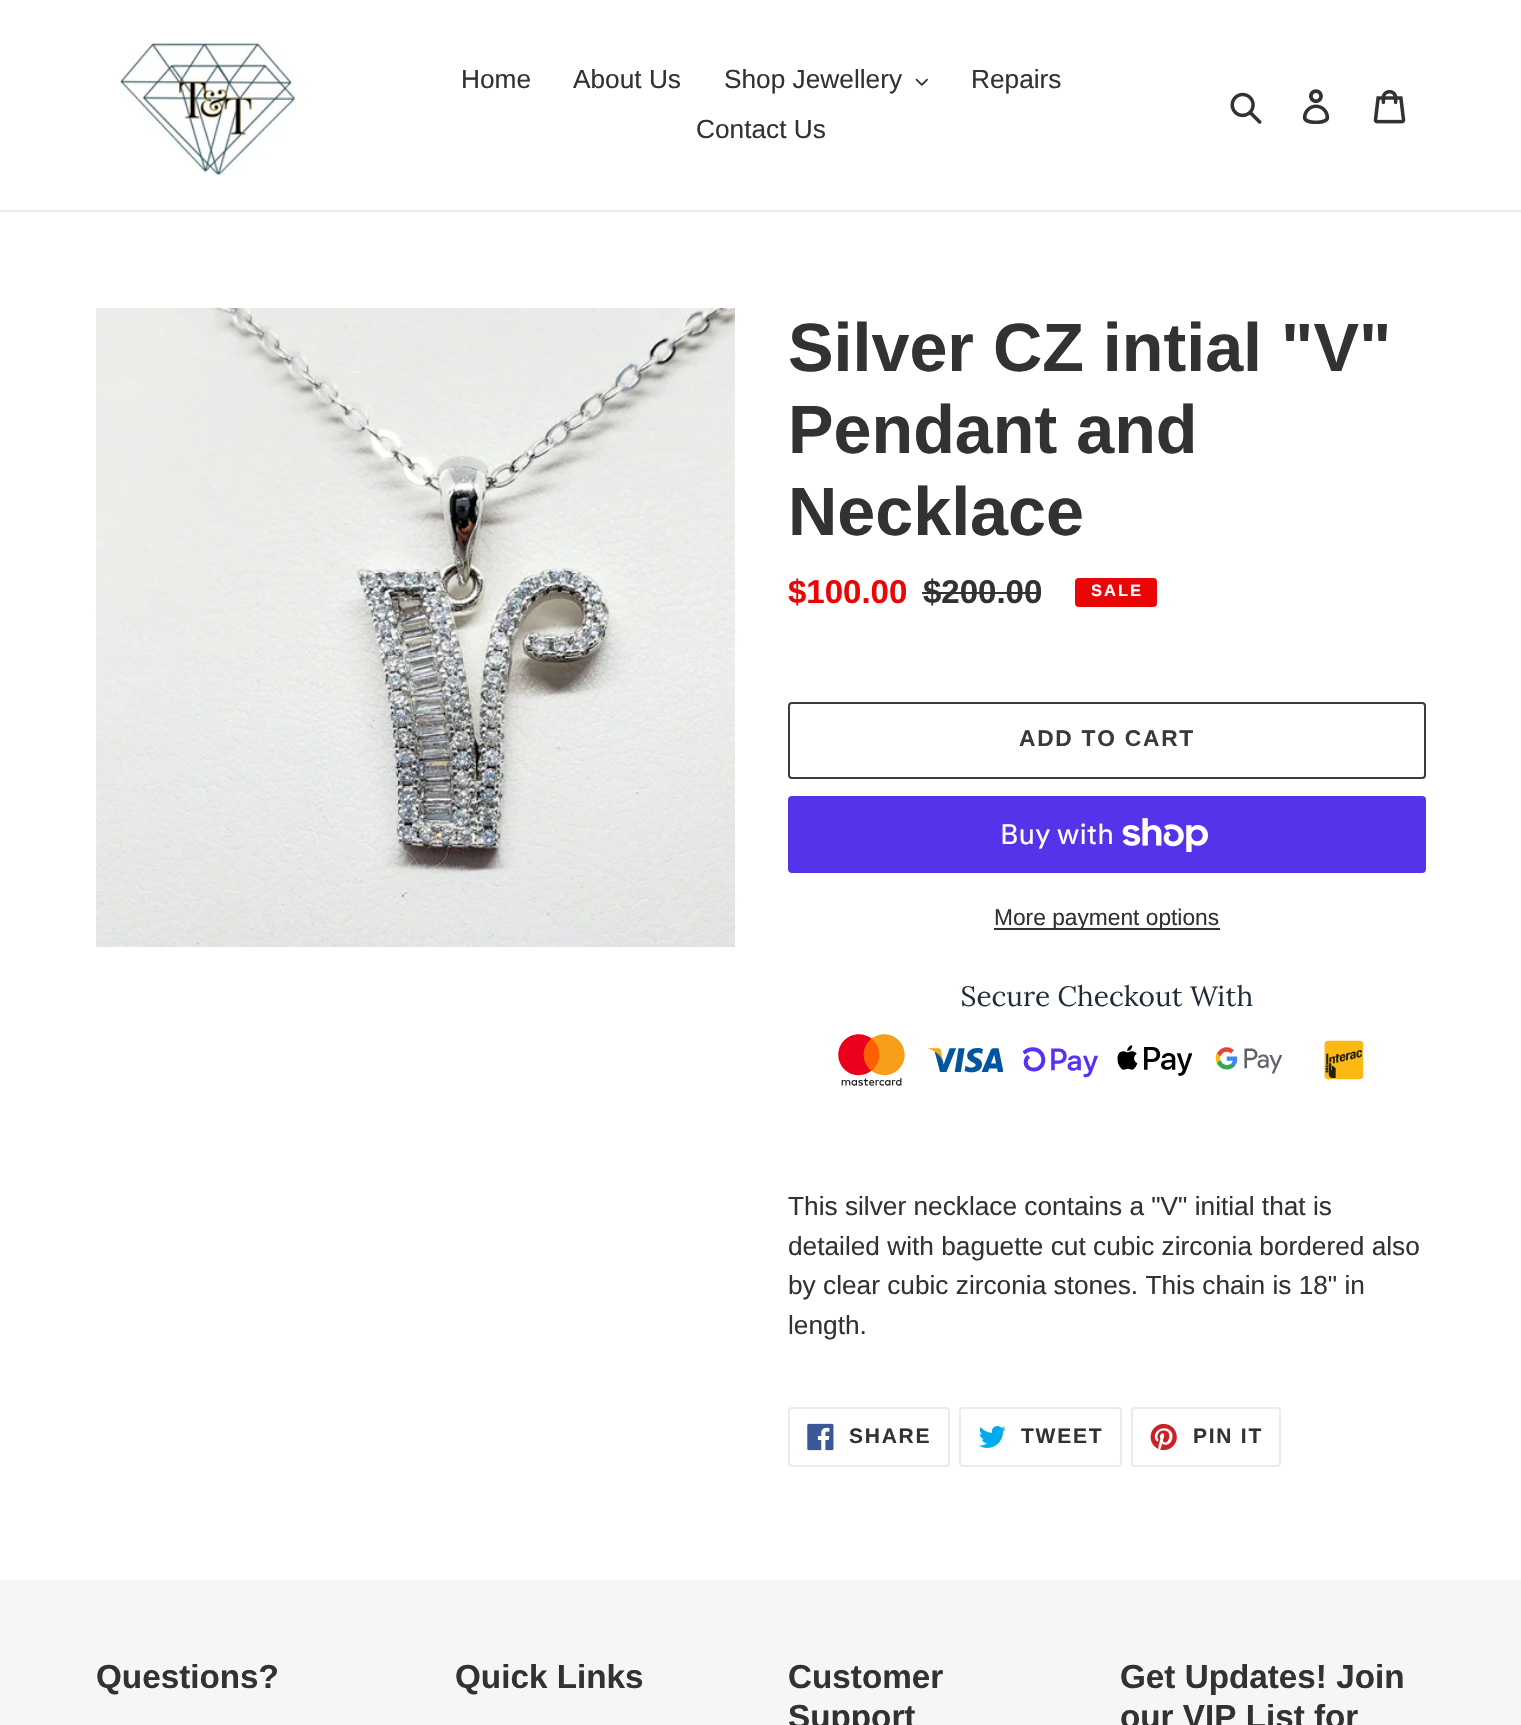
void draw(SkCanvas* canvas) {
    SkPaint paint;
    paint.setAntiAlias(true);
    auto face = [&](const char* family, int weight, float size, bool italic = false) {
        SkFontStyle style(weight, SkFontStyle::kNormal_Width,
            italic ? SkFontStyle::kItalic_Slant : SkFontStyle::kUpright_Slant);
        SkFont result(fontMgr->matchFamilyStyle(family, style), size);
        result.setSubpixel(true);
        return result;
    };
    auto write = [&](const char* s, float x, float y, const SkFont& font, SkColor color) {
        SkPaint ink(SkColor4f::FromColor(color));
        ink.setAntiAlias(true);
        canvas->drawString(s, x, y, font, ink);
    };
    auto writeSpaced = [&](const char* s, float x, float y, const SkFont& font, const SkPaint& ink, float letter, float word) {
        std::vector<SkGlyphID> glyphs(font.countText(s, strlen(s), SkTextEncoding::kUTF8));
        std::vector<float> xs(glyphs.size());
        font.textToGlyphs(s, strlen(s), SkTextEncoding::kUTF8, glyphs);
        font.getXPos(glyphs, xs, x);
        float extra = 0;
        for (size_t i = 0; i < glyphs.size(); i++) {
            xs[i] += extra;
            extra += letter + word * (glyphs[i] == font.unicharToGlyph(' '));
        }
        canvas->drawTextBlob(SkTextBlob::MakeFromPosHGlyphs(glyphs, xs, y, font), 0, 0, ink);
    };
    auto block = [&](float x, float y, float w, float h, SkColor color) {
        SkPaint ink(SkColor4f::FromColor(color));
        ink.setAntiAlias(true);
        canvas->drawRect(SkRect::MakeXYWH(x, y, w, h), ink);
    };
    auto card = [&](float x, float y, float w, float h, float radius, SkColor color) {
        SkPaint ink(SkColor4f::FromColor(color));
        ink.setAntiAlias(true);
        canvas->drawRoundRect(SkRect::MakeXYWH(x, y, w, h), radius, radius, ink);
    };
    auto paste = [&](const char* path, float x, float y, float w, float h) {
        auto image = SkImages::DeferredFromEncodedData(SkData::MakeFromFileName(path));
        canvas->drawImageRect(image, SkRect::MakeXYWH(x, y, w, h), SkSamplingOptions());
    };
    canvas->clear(SK_ColorWHITE);
    block(0, 210, 1521, 2, SkColorSetRGB(235, 235, 235));
    paste("pic1.png", 119, 42, 183, 134);
    auto kFont1 = face("Liberation Sans", 400, 26.25f);
    write("Home", 461, 88, kFont1, SkColorSetRGB(51, 50, 50));
    write("About Us", 573, 88, kFont1, SkColorSetRGB(51, 50, 50));
    write("Shop Jewellery", 724, 88, kFont1, SkColorSetRGB(51, 50, 50));
    paste("pic2.png", 915, 78, 13, 8);
    write("Repairs", 971, 88, kFont1, SkColorSetRGB(51, 50, 50));
    write("Contact Us", 696, 138, kFont1, SkColorSetRGB(51, 50, 50));
    paste("pic3.png", 1230, 92, 32, 32);
    paste("pic4.png", 1302, 89, 28, 35);
    paste("pic5.png", 1373, 89, 33, 35);
    paste("pic6.png", 96, 308, 639, 639);
    auto kFont2 = face("Liberation Sans", 700, 68.25f);
    write("Silver CZ intial \"V\"", 788, 371, kFont2, SkColorSetRGB(51, 50, 50));
    write("Pendant and", 788, 453, kFont2, SkColorSetRGB(51, 50, 50));
    write("Necklace", 788, 535, kFont2, SkColorSetRGB(51, 50, 50));
    auto kFont3 = face("Liberation Sans", 700, 33);
    write("$100.00", 788, 603, kFont3, SkColorSetRGB(234, 6, 6));
    write("$200.00", 923, 603, kFont3, SkColorSetRGB(51, 50, 50));
    block(922, 592, 119, 2, SkColorSetRGB(51, 50, 50));
    paint.setColor(SkColorSetRGB(234, 6, 6));
    canvas->drawRoundRect(SkRect::MakeXYWH(1076, 579, 80, 27), 3, 3, paint);
    paint.setStyle(SkPaint::kStroke_Style);
    paint.setStrokeWidth(2);
    canvas->drawRoundRect(SkRect::MakeXYWH(1076, 579, 80, 27), 3, 3, paint);
    auto kFont4 = face("Liberation Sans", 700, 16.5f);
    paint.setStyle(SkPaint::kFill_Style);
    paint.setColor(SK_ColorWHITE);
    writeSpaced("SALE", 1091, 596, kFont4, paint, 2, 0);
    paint.setStyle(SkPaint::kStroke_Style);
    paint.setColor(SkColorSetRGB(58, 58, 58));
    canvas->drawRoundRect(SkRect::MakeXYWH(789, 703, 636, 75), 3, 3, paint);
    auto kFont5 = face("Liberation Sans", 700, 22.75f);
    paint.setStyle(SkPaint::kFill_Style);
    writeSpaced("ADD TO CART", 1019, 746, kFont5, paint, 1.75f, 0);
    card(788, 796, 638, 77, 4, SkColorSetRGB(84, 51, 235));
    auto kFont6 = face("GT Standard", 400, 28);
    write("Buy with", 1000, 844, kFont6, SK_ColorWHITE);
    paste("pic7.png", 1122, 818, 86, 34);
    block(994, 928, 226, 2, SkColorSetRGB(51, 50, 50));
    auto kFont7 = face("Liberation Sans", 400, 22.75f);
    write("More payment options", 994, 925, kFont7, SkColorSetRGB(51, 50, 50));
    paste("pic8.png", 838, 984, 526, 102);
    write("This silver necklace contains a \"V\" initial that is", 788, 1215, kFont1, SkColorSetRGB(51, 50, 50));
    write("detailed with baguette cut cubic zirconia bordered also", 788, 1255, kFont1, SkColorSetRGB(51, 50, 50));
    write("by clear cubic zirconia stones. This chain is 18\" in", 788, 1294, kFont1, SkColorSetRGB(51, 50, 50));
    write("length.", 788, 1334, kFont1, SkColorSetRGB(51, 50, 50));
    paint.setStyle(SkPaint::kStroke_Style);
    paint.setColor(SkColorSetRGB(235, 235, 235));
    canvas->drawRoundRect(SkRect::MakeXYWH(789, 1408, 160, 58), 3, 3, paint);
    paste("pic9.png", 807, 1423, 27, 28);
    auto kFont8 = face("Liberation Sans", 700, 21);
    paint.setStyle(SkPaint::kFill_Style);
    paint.setColor(SkColorSetRGB(51, 50, 50));
    writeSpaced("SHARE", 849, 1443, kFont8, paint, 1.75f, 0);
    paint.setStyle(SkPaint::kStroke_Style);
    paint.setColor(SkColorSetRGB(235, 235, 235));
    canvas->drawRoundRect(SkRect::MakeXYWH(960, 1408, 161, 58), 3, 3, paint);
    paste("pic10.png", 978, 1426, 28, 22);
    paint.setStyle(SkPaint::kFill_Style);
    paint.setColor(SkColorSetRGB(51, 50, 50));
    writeSpaced("TWEET", 1021, 1443, kFont8, paint, 1.75f, 0);
    paint.setStyle(SkPaint::kStroke_Style);
    paint.setColor(SkColorSetRGB(235, 235, 235));
    canvas->drawRoundRect(SkRect::MakeXYWH(1132, 1408, 148, 58), 3, 3, paint);
    paste("pic11.png", 1150, 1423, 27, 28);
    paint.setStyle(SkPaint::kFill_Style);
    paint.setColor(SkColorSetRGB(51, 50, 50));
    writeSpaced("PIN IT", 1193, 1443, kFont8, paint, 1.75f, 0);
    block(0, 1580, 1521, 145, SkColorSetRGB(246, 246, 246));
    auto kFont9 = face("Liberation Sans", 700, 33.25f);
    write("Questions?", 96, 1688, kFont9, SkColorSetRGB(51, 50, 50));
    write("Quick Links", 455, 1688, kFont9, SkColorSetRGB(51, 50, 50));
    write("Customer", 788, 1688, kFont9, SkColorSetRGB(51, 50, 50));
    write("Support", 788, 1728, kFont9, SkColorSetRGB(51, 50, 50));
    write("Get Updates! Join", 1120, 1688, kFont9, SkColorSetRGB(51, 50, 50));
    write("our VIP List for", 1120, 1728, kFont9, SkColorSetRGB(51, 50, 50));
}
